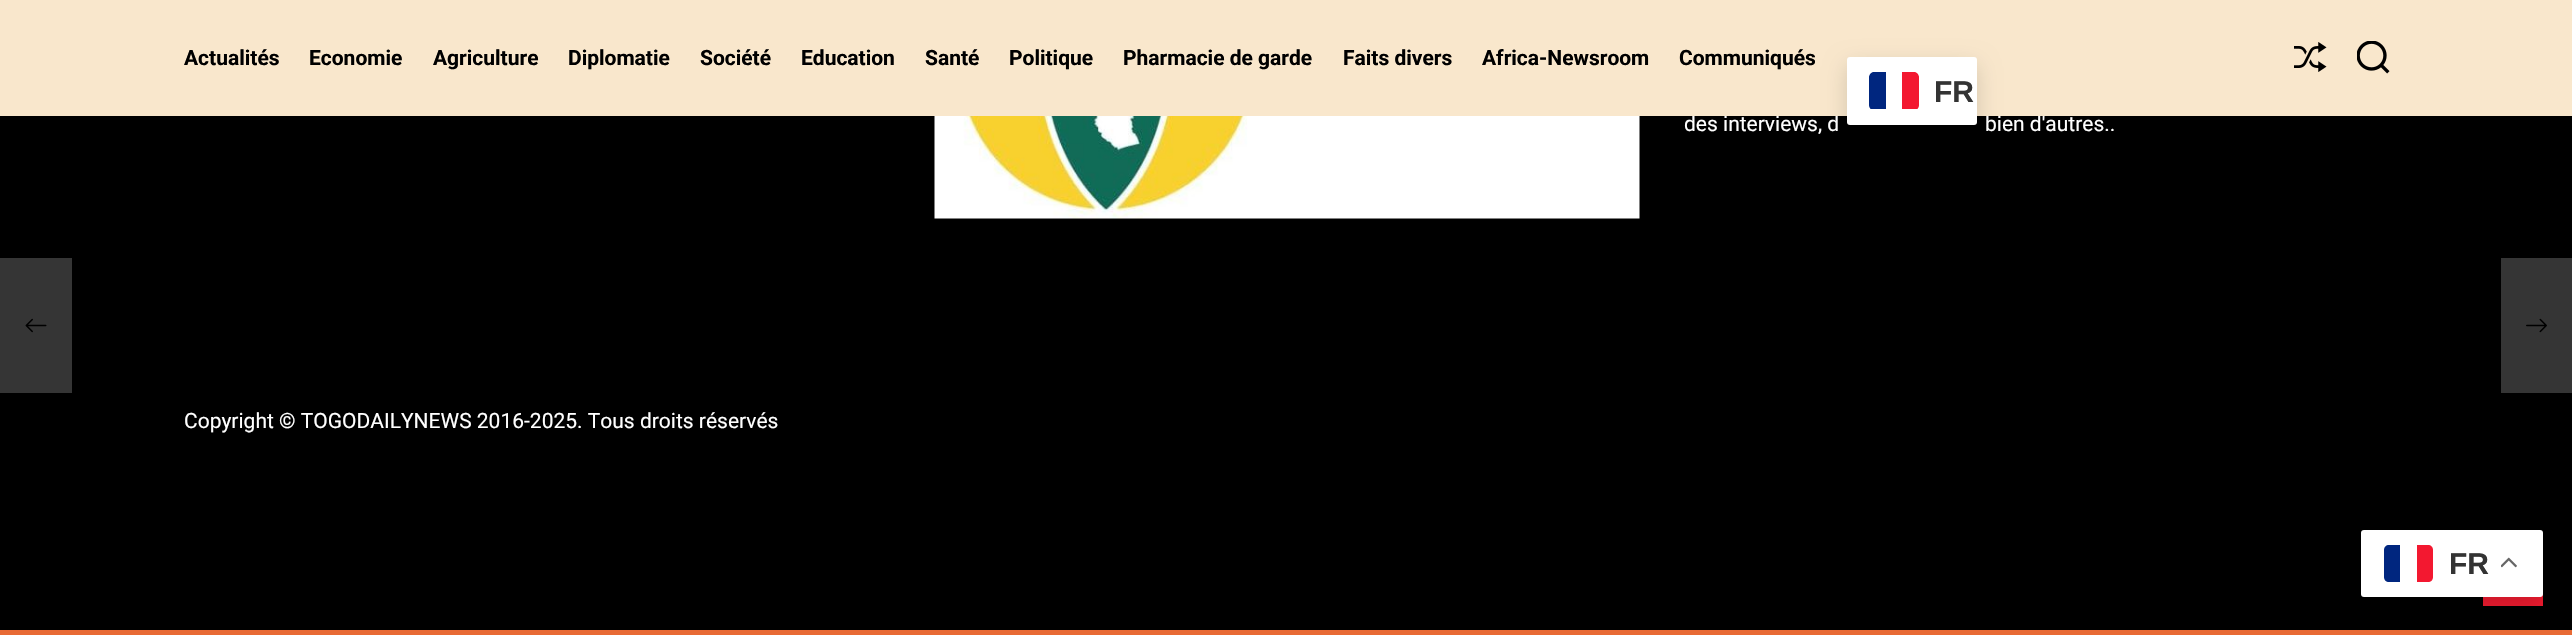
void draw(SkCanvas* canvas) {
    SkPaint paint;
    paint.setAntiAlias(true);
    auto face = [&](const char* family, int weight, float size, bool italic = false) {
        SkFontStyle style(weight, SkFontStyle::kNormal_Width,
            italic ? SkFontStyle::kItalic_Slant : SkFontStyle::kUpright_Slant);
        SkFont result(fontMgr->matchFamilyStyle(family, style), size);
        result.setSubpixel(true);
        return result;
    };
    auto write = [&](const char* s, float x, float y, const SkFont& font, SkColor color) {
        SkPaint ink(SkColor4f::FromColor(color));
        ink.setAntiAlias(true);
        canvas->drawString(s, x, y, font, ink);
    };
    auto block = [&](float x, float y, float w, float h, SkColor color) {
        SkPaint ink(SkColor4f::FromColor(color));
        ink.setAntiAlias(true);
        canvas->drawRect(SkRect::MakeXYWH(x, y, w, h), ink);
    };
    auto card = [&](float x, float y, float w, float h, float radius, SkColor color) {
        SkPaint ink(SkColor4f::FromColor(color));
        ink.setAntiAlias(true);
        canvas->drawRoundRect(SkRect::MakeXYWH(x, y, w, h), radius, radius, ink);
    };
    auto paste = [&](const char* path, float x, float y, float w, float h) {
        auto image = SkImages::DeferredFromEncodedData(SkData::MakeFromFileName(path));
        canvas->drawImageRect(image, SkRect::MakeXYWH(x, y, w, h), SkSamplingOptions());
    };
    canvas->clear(SK_ColorBLACK);
    auto kFont1 = face("Roboto", 400, 21);
    write("des interviews, d", 1684, 131, kFont1, SK_ColorWHITE);
    write("bien d'autres..", 1985, 131, kFont1, SK_ColorWHITE);
    block(0, 0, 2572, 116, SkColorSetRGB(249, 231, 204));
    auto kFont2 = face("Roboto", 700, 21);
    write("Actualités", 184, 65, kFont2, SK_ColorBLACK);
    write("Economie", 309, 65, kFont2, SK_ColorBLACK);
    write("Agriculture", 433, 65, kFont2, SK_ColorBLACK);
    write("Diplomatie", 568, 65, kFont2, SK_ColorBLACK);
    write("Société", 700, 65, kFont2, SK_ColorBLACK);
    write("Education", 801, 65, kFont2, SK_ColorBLACK);
    write("Santé", 925, 65, kFont2, SK_ColorBLACK);
    write("Politique", 1009, 65, kFont2, SK_ColorBLACK);
    write("Pharmacie de garde", 1123, 65, kFont2, SK_ColorBLACK);
    write("Faits divers", 1343, 65, kFont2, SK_ColorBLACK);
    write("Africa-Newsroom", 1482, 65, kFont2, SK_ColorBLACK);
    write("Communiqués", 1679, 65, kFont2, SK_ColorBLACK);
    paint.setColor(SkColorSetARGB(38, 0, 0, 0));
    paint.setMaskFilter(SkMaskFilter::MakeBlur(kNormal_SkBlurStyle, 11));
    canvas->drawRoundRect(SkRect::MakeXYWH(1847, 65, 130, 67), 3, 3, paint);
    paint.setMaskFilter(nullptr);
    card(1847, 57, 130, 68, 3, SK_ColorWHITE);
    canvas->save();
    canvas->clipPath(SkPathBuilder().moveTo(1874, 72).lineTo(1914, 72).cubicTo(1917, 72, 1919, 74, 1919, 77).lineTo(1919, 105).cubicTo(1919, 108, 1917, 110, 1914, 110).lineTo(1874, 110).cubicTo(1871, 110, 1869, 108, 1869, 105).lineTo(1869, 77).cubicTo(1869, 74, 1871, 72, 1874, 72).close().detach(), true);
    paint.setColor(SkColorSetRGB(0, 38, 127));
    canvas->drawPath(SkPathBuilder().moveTo(1874, 72).lineTo(1886, 72).lineTo(1886, 109).lineTo(1869, 109).lineTo(1869, 77).cubicTo(1869, 74, 1871, 72, 1874, 72).close().detach(), paint);
    paint.setColor(SkColorSetRGB(243, 24, 48));
    canvas->drawPath(SkPathBuilder().moveTo(1902, 72).lineTo(1914, 72).cubicTo(1917, 72, 1919, 74, 1919, 77).lineTo(1919, 109).lineTo(1902, 109).close().detach(), paint);
    canvas->restore();
    auto kFont3 = face("Liberation Sans", 700, 30);
    write("FR", 1934, 102, kFont3, SkColorSetRGB(51, 51, 51));
    paste("pic1.png", 2294, 42, 33, 30);
    paste("pic2.png", 2357, 41, 33, 33);
    block(0, 258, 72, 135, SkColorSetRGB(53, 53, 53));
    paste("pic3.png", 25, 318, 22, 15);
    block(2501, 258, 71, 135, SkColorSetRGB(53, 53, 53));
    paste("pic4.png", 2526, 318, 21, 15);
    block(0, 630, 2572, 5, SkColorSetRGB(232, 106, 53));
    paste("pic5.png", 934, 116, 706, 103);
    write("Copyright © TOGODAILYNEWS 2016-2025. Tous droits réservés", 184, 428, kFont1, SK_ColorWHITE);
    block(2483, 594, 60, 12, SkColorSetRGB(237, 27, 47));
    paint.setColor(SkColorSetARGB(38, 0, 0, 0));
    paint.setMaskFilter(SkMaskFilter::MakeBlur(kNormal_SkBlurStyle, 11));
    canvas->drawRoundRect(SkRect::MakeXYWH(2361, 537, 182, 68), 3, 3, paint);
    paint.setMaskFilter(nullptr);
    card(2361, 530, 182, 67, 3, SK_ColorWHITE);
    paint.setColor(SkColorSetRGB(0, 38, 127));
    canvas->drawPath(SkPathBuilder().moveTo(2389, 545).lineTo(2400, 545).lineTo(2400, 582).lineTo(2389, 582).cubicTo(2386, 582, 2384, 580, 2384, 577).lineTo(2384, 550).cubicTo(2384, 547, 2386, 545, 2389, 545).close().detach(), paint);
    paint.setColor(SkColorSetRGB(243, 24, 48));
    canvas->drawPath(SkPathBuilder().moveTo(2417, 545).lineTo(2428, 545).cubicTo(2431, 545, 2433, 547, 2433, 550).lineTo(2433, 577).cubicTo(2433, 580, 2431, 582, 2428, 582).lineTo(2417, 582).close().detach(), paint);
    write("FR", 2449, 574, kFont3, SkColorSetRGB(51, 51, 51));
    paste("pic6.png", 2501, 557, 16, 11);
}
